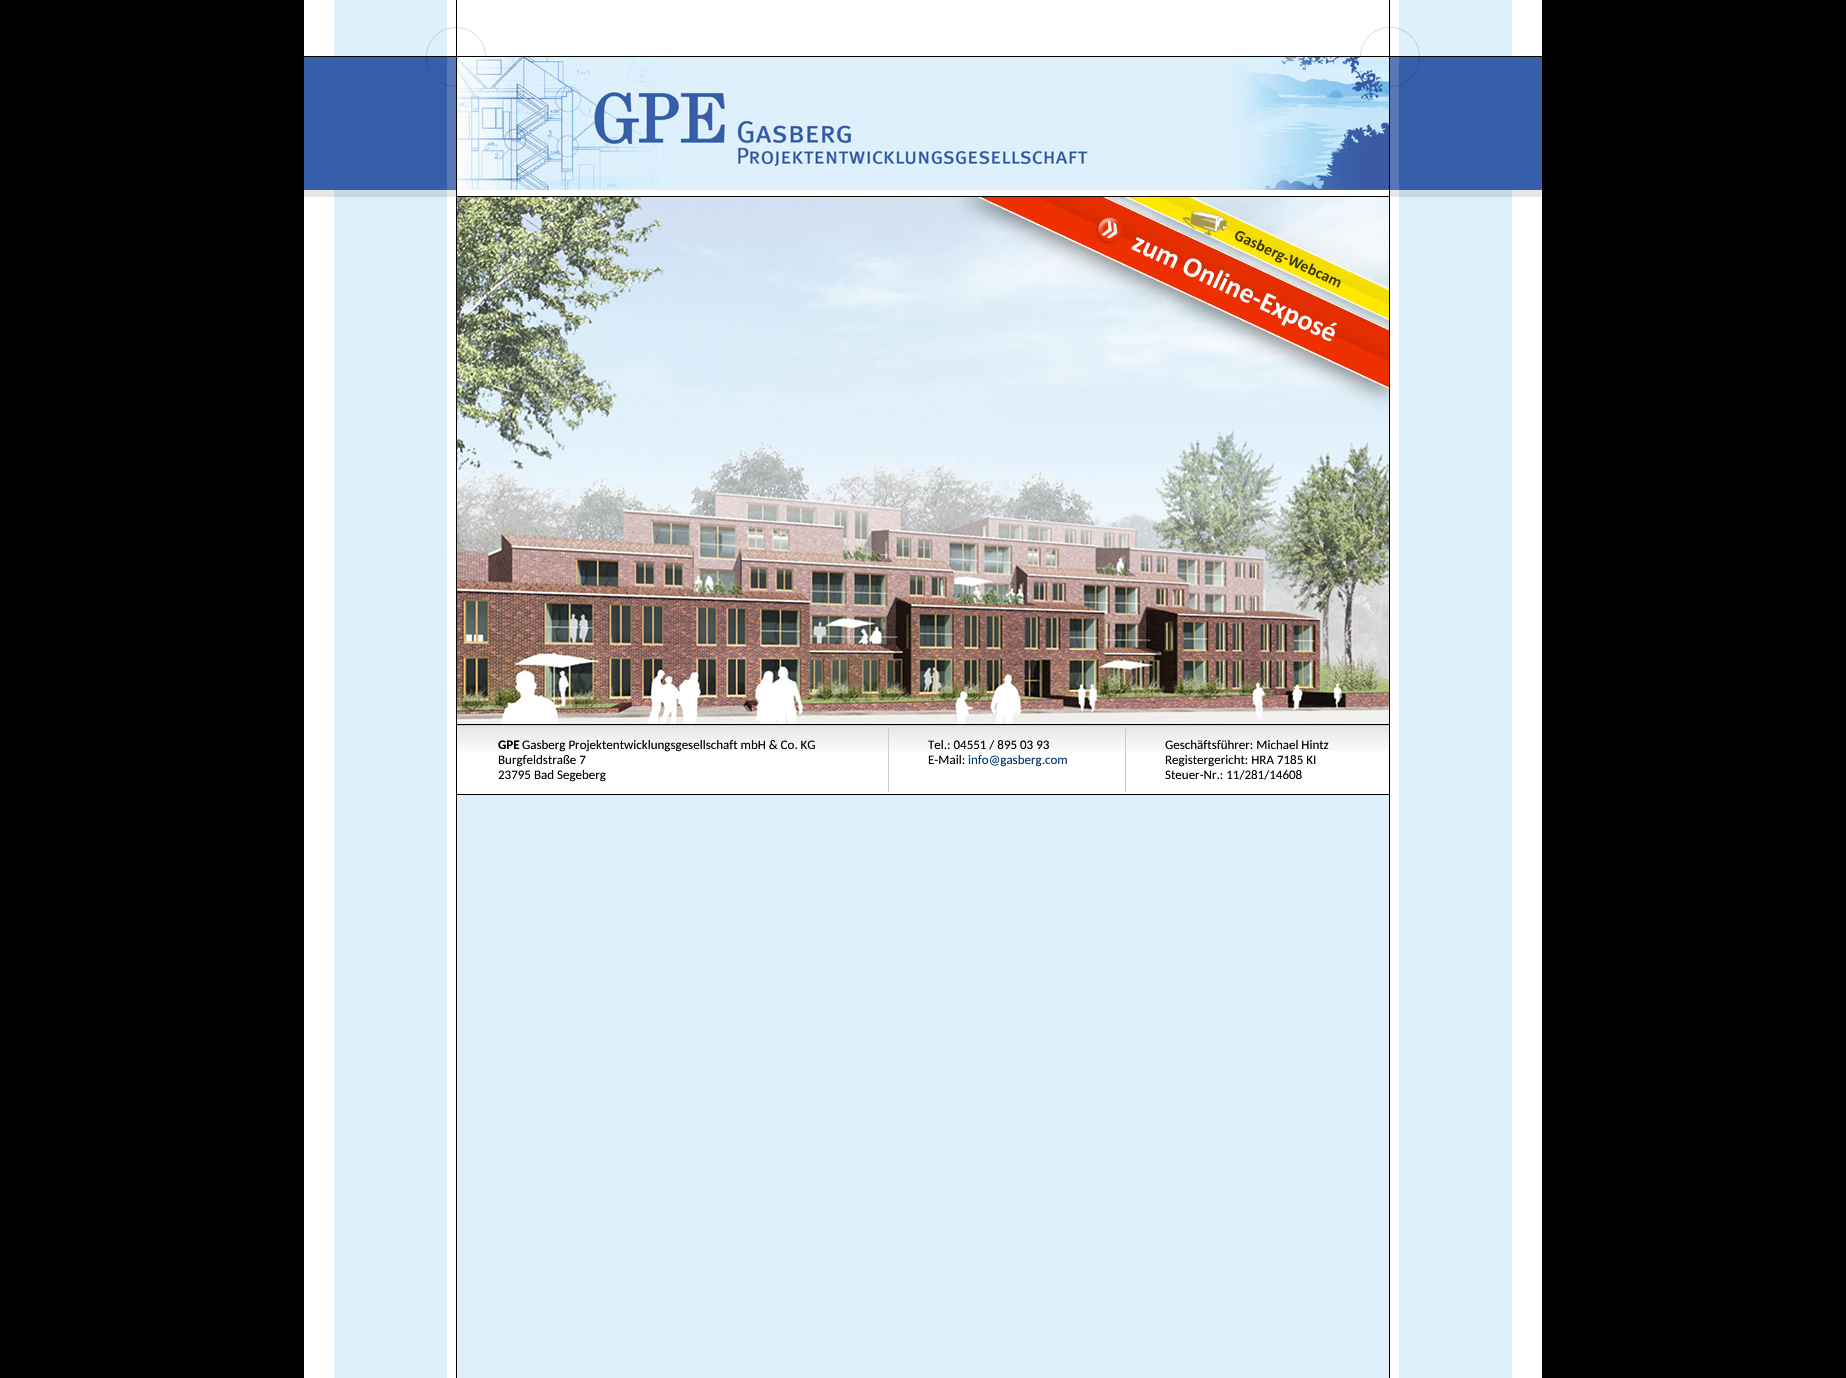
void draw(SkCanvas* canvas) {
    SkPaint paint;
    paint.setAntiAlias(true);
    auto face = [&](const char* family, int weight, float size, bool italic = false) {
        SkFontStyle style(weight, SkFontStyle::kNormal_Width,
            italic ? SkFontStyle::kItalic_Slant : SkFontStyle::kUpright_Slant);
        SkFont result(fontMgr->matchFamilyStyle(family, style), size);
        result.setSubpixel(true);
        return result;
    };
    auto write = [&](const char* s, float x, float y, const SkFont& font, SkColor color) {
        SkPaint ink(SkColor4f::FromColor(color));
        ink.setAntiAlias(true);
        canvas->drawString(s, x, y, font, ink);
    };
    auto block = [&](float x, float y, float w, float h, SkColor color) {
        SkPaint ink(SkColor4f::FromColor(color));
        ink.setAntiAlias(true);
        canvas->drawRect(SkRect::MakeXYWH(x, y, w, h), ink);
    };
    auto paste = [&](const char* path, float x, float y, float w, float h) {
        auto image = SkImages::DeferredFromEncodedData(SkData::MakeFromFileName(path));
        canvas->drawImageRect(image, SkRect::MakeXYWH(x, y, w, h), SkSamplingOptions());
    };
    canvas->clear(SK_ColorBLACK);
    paste("pic1.png", 304, 0, 1238, 1378);
    block(457, 0, 932, 27, SK_ColorWHITE);
    paste("pic2.png", 457, 27, 932, 170);
    paste("pic3.png", 457, 57, 932, 133);
    paste("pic4.png", 457, 197, 932, 527);
    block(457, 751, 932, 43, SK_ColorWHITE);
    paste("pic5.png", 457, 725, 932, 26);
    block(457, 724, 932, 1, SK_ColorBLACK);
    block(457, 794, 932, 1, SK_ColorBLACK);
    auto kFont1 = face("Carlito", 700, 13);
    write("GPE", 498, 749, kFont1, SK_ColorBLACK);
    auto kFont2 = face("Carlito", 400, 13);
    write("Gasberg Projektentwicklungsgesellschaft mbH & Co. KG", 522, 749, kFont2, SK_ColorBLACK);
    write("Burgfeldstraße 7", 498, 764, kFont2, SK_ColorBLACK);
    write("23795 Bad Segeberg", 498, 779, kFont2, SK_ColorBLACK);
    block(888, 727, 1, 65, SkColorSetRGB(204, 204, 204));
    write("Tel.: 04551 / 895 03 93", 928, 749, kFont2, SK_ColorBLACK);
    write("E-Mail:", 928, 764, kFont2, SK_ColorBLACK);
    write("info@gasberg.com", 968, 764, kFont2, SkColorSetRGB(0, 51, 102));
    block(1125, 727, 1, 65, SkColorSetRGB(204, 204, 204));
    write("Geschäftsführer: Michael Hintz", 1165, 749, kFont2, SK_ColorBLACK);
    write("Registergericht: HRA 7185 KI", 1165, 764, kFont2, SK_ColorBLACK);
    write("Steuer-Nr.: 11/281/14608", 1165, 779, kFont2, SK_ColorBLACK);
}
